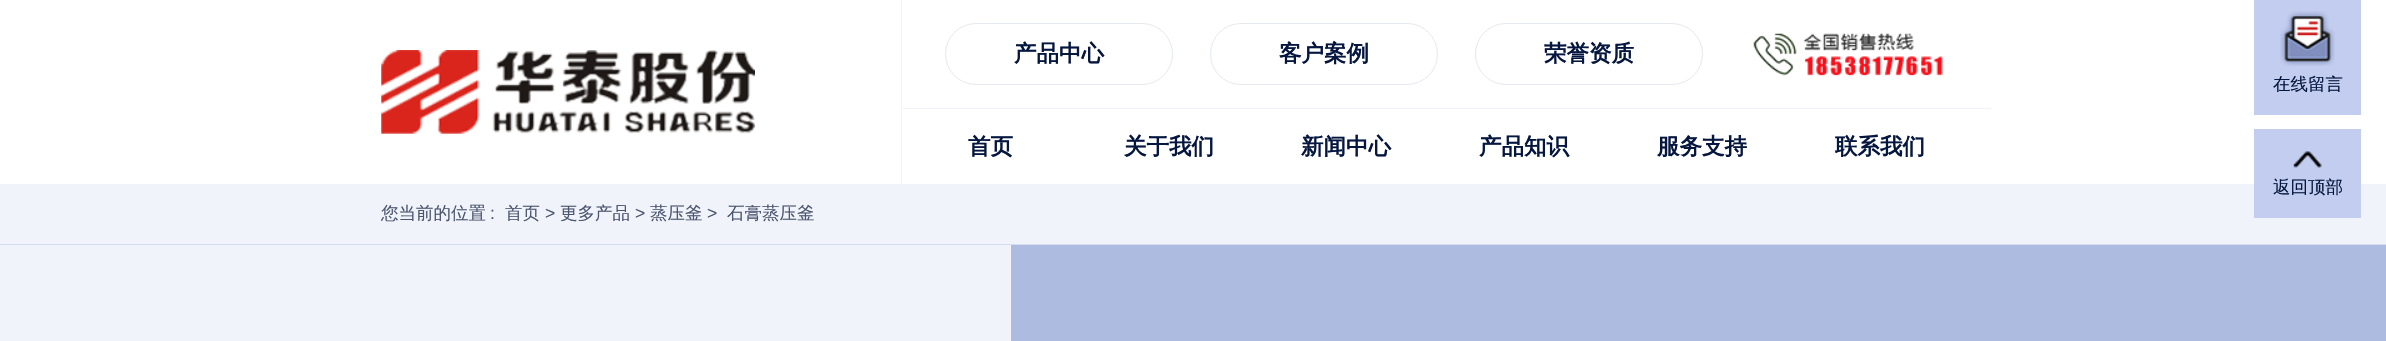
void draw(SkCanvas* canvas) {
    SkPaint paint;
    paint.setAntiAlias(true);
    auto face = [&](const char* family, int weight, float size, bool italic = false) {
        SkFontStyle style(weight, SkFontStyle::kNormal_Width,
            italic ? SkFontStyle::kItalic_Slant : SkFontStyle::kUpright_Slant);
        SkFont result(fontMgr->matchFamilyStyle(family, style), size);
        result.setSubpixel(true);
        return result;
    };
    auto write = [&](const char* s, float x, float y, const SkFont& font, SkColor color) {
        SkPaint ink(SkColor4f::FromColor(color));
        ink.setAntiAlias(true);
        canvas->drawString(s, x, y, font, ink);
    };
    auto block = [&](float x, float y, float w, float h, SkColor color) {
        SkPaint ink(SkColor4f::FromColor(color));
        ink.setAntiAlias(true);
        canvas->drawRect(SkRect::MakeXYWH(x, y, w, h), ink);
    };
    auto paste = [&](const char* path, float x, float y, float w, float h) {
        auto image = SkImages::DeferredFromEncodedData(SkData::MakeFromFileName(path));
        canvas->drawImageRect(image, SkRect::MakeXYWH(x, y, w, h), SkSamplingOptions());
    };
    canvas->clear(SK_ColorWHITE);
    paste("pic1.png", 381, 50, 374, 84);
    block(901, 0, 1, 184, SkColorSetRGB(240, 243, 250));
    paint.setStyle(SkPaint::kStroke_Style);
    paint.setStrokeWidth(1);
    paint.setColor(SkColorSetRGB(230, 233, 240));
    canvas->drawRoundRect(SkRect::MakeXYWH(945.5f, 23.5f, 227, 61), 30.5f, 30.5f, paint);
    auto kFont1 = face("WenQuanYi Zen Hei", 700, 22.5f);
    write("产品中心", 1014, 61, kFont1, SkColorSetRGB(5, 22, 63));
    canvas->drawRoundRect(SkRect::MakeXYWH(1210.5f, 23.5f, 227, 61), 30.5f, 30.5f, paint);
    write("客户案例", 1279, 61, kFont1, SkColorSetRGB(5, 22, 63));
    canvas->drawRoundRect(SkRect::MakeXYWH(1475.5f, 23.5f, 227, 61), 30.5f, 30.5f, paint);
    write("荣誉资质", 1544, 61, kFont1, SkColorSetRGB(5, 22, 63));
    paste("pic2.png", 1753, 33, 190, 43);
    block(903, 108, 1088, 1, SkColorSetRGB(240, 243, 250));
    write("首页", 968, 154, kFont1, SkColorSetRGB(5, 22, 63));
    write("关于我们", 1124, 154, kFont1, SkColorSetRGB(5, 22, 63));
    write("新闻中心", 1301, 154, kFont1, SkColorSetRGB(5, 22, 63));
    write("产品知识", 1479, 154, kFont1, SkColorSetRGB(5, 22, 63));
    write("服务支持", 1657, 154, kFont1, SkColorSetRGB(5, 22, 63));
    write("联系我们", 1835, 154, kFont1, SkColorSetRGB(5, 22, 63));
    block(2254, 0, 107, 115, SkColorSetRGB(194, 205, 239));
    paste("pic3.png", 2280, 11, 55, 55);
    auto kFont2 = face("WenQuanYi Zen Hei", 500, 17.5f);
    write("在线留言", 2273, 90, kFont2, SkColorSetRGB(5, 22, 63));
    block(0, 184, 2386, 60, SkColorSetRGB(240, 243, 250));
    block(2254, 129, 107, 89, SkColorSetRGB(194, 205, 239));
    paste("pic4.png", 2293, 151, 29, 17);
    write("返回顶部", 2273, 193, kFont2, SkColorSetRGB(5, 22, 63));
    block(0, 244, 2386, 1, SkColorSetRGB(211, 220, 240));
    write("您当前的位置", 381, 219, kFont2, SkColorSetRGB(75, 85, 110));
    auto kFont3 = face("Liberation Sans", 400, 17.5f);
    write(":", 490, 219, kFont3, SkColorSetRGB(75, 85, 110));
    write("首页", 505, 219, kFont2, SkColorSetRGB(75, 85, 110));
    write(">", 545, 219, kFont3, SkColorSetRGB(75, 85, 110));
    write("更多产品", 560, 219, kFont2, SkColorSetRGB(75, 85, 110));
    write(">", 635, 219, kFont3, SkColorSetRGB(75, 85, 110));
    write("蒸压釜", 650, 219, kFont2, SkColorSetRGB(75, 85, 110));
    write(">", 707, 219, kFont3, SkColorSetRGB(75, 85, 110));
    write("石膏蒸压釜", 727, 219, kFont2, SkColorSetRGB(75, 85, 110));
    block(0, 245, 1011, 96, SkColorSetRGB(240, 243, 250));
    paint.setStyle(SkPaint::kFill_Style);
    {
        const SkColor colors[] = {SkColorSetRGB(173, 187, 225), SkColorSetRGB(13, 23, 58)};
        const float stops[] = {0.2f, 1};
        const SkPoint ends[] = {{1699, 245}, {1699, 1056}};
        paint.setShader(SkGradientShader::MakeLinear(ends, colors, stops, 2, SkTileMode::kClamp));
        paint.setAlpha(255);
    }
    canvas->drawRect(SkRect::MakeXYWH(1011, 245, 1375, 96), paint);
}
